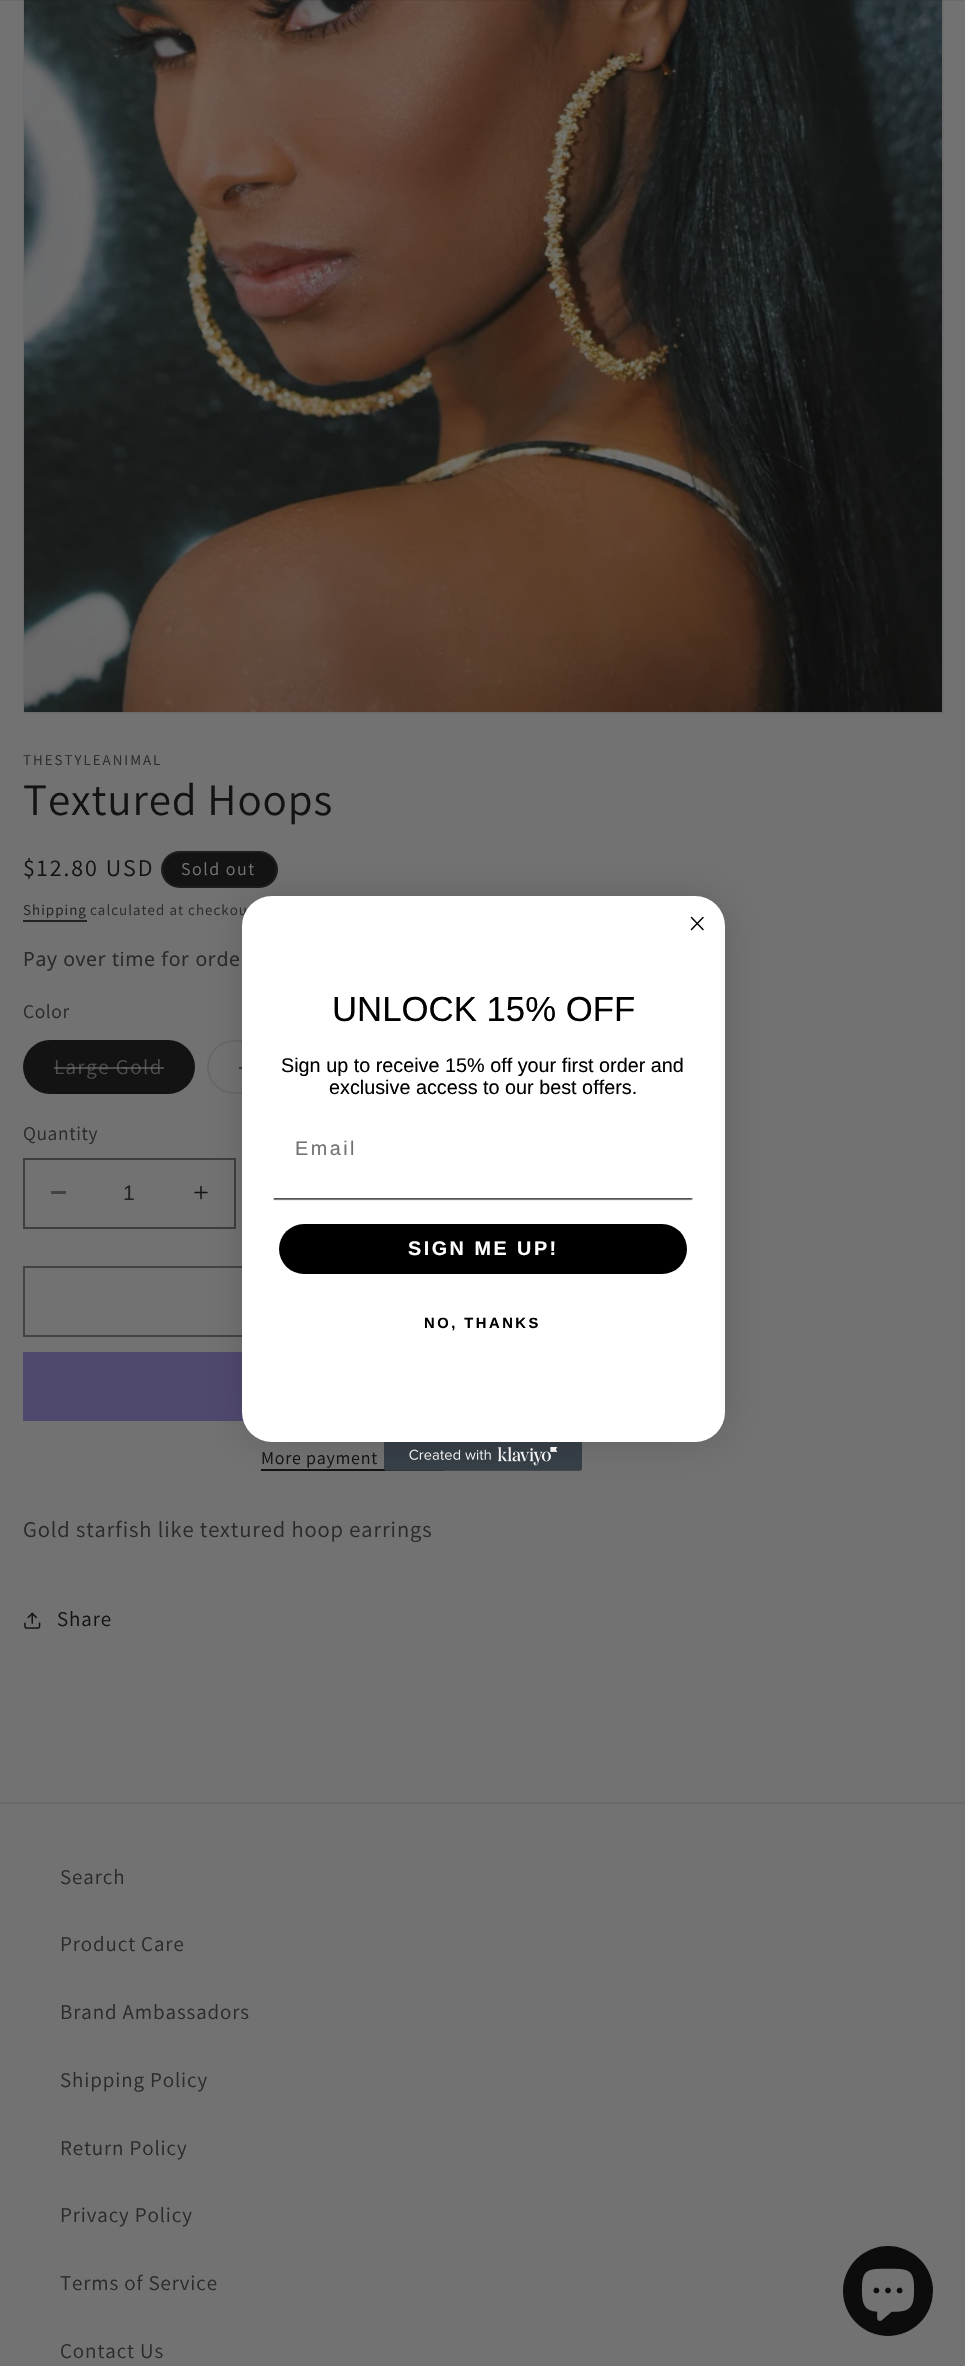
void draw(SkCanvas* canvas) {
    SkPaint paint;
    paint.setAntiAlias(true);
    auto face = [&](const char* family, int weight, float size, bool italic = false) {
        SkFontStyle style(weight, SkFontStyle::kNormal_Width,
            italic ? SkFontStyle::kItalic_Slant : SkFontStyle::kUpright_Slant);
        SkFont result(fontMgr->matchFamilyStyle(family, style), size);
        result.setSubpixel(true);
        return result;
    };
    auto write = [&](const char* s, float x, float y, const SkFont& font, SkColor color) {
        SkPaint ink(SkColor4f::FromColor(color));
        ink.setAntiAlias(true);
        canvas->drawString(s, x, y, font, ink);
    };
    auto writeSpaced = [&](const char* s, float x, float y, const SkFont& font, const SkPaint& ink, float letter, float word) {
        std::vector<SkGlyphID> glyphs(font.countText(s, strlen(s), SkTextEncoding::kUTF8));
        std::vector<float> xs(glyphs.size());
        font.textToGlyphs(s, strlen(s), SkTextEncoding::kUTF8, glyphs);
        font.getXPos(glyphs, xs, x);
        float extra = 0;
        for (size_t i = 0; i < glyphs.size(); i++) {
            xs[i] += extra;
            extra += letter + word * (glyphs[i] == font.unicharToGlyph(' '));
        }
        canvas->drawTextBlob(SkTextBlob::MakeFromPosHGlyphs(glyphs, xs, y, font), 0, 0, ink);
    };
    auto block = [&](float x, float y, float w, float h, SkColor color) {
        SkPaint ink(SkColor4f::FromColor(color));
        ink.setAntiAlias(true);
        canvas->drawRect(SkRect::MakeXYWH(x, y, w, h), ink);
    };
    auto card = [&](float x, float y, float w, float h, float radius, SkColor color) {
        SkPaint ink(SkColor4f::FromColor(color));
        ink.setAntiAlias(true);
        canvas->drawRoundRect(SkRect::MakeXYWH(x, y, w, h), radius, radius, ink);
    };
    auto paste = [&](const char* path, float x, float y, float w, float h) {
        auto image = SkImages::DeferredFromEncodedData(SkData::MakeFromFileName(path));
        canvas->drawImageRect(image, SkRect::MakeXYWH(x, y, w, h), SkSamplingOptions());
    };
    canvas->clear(SkColorSetRGB(114, 114, 114));
    paint.setStyle(SkPaint::kStroke_Style);
    paint.setStrokeWidth(2);
    paint.setColor(SkColorSetRGB(109, 109, 109));
    canvas->drawRect(SkRect::MakeXYWH(24, -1, 919, 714), paint);
    paste("pic1.png", 24, 0, 918, 712);
    block(0, 0, 965, 1, SkColorSetARGB(20, 19, 19, 19));
    auto kFont1 = face("Assistant", 400, 15);
    paint.setStyle(SkPaint::kFill_Style);
    paint.setColor(SkColorSetRGB(43, 43, 43));
    writeSpaced("THESTYLEANIMAL", 23, 765, kFont1, paint, 2, 0);
    auto kFont2 = face("Assistant", 400, 45);
    paint.setColor(SkColorSetRGB(19, 19, 19));
    writeSpaced("Textured Hoops", 23, 815, kFont2, paint, 0.9f, 0);
    auto kFont3 = face("Assistant", 400, 24);
    writeSpaced("$12.80 USD", 23, 876, kFont3, paint, 2, 0);
    card(161, 851, 117, 37, 18.5f, SkColorSetRGB(19, 19, 19));
    paint.setStyle(SkPaint::kStroke_Style);
    paint.setColor(SkColorSetARGB(26, 114, 114, 114));
    canvas->drawRoundRect(SkRect::MakeXYWH(162, 852, 115, 35), 17.5f, 17.5f, paint);
    auto kFont4 = face("Assistant", 400, 18);
    paint.setStyle(SkPaint::kFill_Style);
    paint.setColor(SkColorSetRGB(114, 114, 114));
    writeSpaced("Sold out", 181, 875, kFont4, paint, 1.5f, 0);
    paint.setColor(SkColorSetRGB(34, 34, 34));
    writeSpaced("Shipping", 23, 915, kFont1, paint, 1.05f, 0);
    block(23, 920, 64, 2, SkColorSetRGB(34, 34, 34));
    paint.setColor(SkColorSetRGB(43, 43, 43));
    writeSpaced("calculated at checkou", 90, 915, kFont1, paint, 1.05f, 0);
    auto kFont5 = face("Noto Sans", 400, 19.5f);
    writeSpaced("Pay over time for orde", 23, 966, kFont5, paint, 0.6f, 0);
    auto kFont6 = face("Assistant", 400, 19.5f);
    writeSpaced("Color", 23, 1018, kFont6, paint, 0.6f, 0);
    card(23, 1040, 172, 54, 27, SkColorSetRGB(19, 19, 19));
    auto kFont7 = face("Assistant", 400, 21);
    paint.setColor(SkColorSetRGB(76, 76, 76));
    writeSpaced("Large Gold", 54, 1074, kFont7, paint, 1.5f, 0);
    block(54, 1067, 110, 2, SkColorSetARGB(153, 114, 114, 114));
    paint.setStyle(SkPaint::kStroke_Style);
    paint.setColor(SkColorSetRGB(104, 104, 104));
    canvas->drawRoundRect(SkRect::MakeXYWH(208, 1041, 195, 52), 26, 26, paint);
    block(239, 1067, 3, 2, SkColorSetARGB(153, 19, 19, 19));
    paint.setStyle(SkPaint::kFill_Style);
    paint.setColor(SkColorSetRGB(43, 43, 43));
    writeSpaced("Quantity", 23, 1140, kFont6, paint, 0.6f, 0);
    block(51, 1191, 15, 3, SkColorSetRGB(67, 67, 67));
    paste("pic2.png", 194, 1185, 14, 15);
    paint.setStyle(SkPaint::kStroke_Style);
    paint.setColor(SkColorSetRGB(62, 62, 62));
    canvas->drawRect(SkRect::MakeXYWH(24, 1159, 211, 69), paint);
    auto kFont8 = face("Liberation Sans", 400, 21);
    write("1", 123, 1200, kFont8, SkColorSetRGB(34, 34, 34));
    paint.setColor(SkColorSetRGB(67, 67, 67));
    canvas->drawRect(SkRect::MakeXYWH(24, 1267, 658, 69), paint);
    block(23, 1352, 221, 69, SkColorSetRGB(80, 73, 110));
    paint.setStyle(SkPaint::kFill_Style);
    paint.setColor(SkColorSetRGB(19, 19, 19));
    writeSpaced("More payment", 261, 1464, kFont4, paint, 0.75f, 0);
    block(261, 1469, 183, 2, SkColorSetRGB(19, 19, 19));
    auto kFont9 = face("Assistant", 400, 22.5f);
    paint.setColor(SkColorSetRGB(43, 43, 43));
    writeSpaced("Gold starfish like textured hoop earrings", 23, 1537, kFont9, paint, 0.9f, 0);
    paste("pic3.png", 24, 1612, 17, 17);
    paint.setColor(SkColorSetRGB(19, 19, 19));
    writeSpaced("Share", 57, 1626, kFont7, paint, 0.9f, 0);
    paste("pic5.png", 384, 1442, 198, 29);
    paint.setColor(SkColorSetARGB(38, 0, 0, 0));
    paint.setMaskFilter(SkMaskFilter::MakeBlur(kNormal_SkBlurStyle, 18.5f));
    canvas->drawRoundRect(SkRect::MakeXYWH(242, 896, 483, 546), 30, 30, paint);
    paint.setMaskFilter(nullptr);
    card(242, 896, 483, 546, 30, SK_ColorWHITE);
    paint.setStyle(SkPaint::kStroke_Style);
    paint.setStrokeWidth(1.5f);
    paint.setStrokeCap(SkPaint::kRound_Cap);
    paint.setStrokeJoin(SkPaint::kRound_Join);
    paint.setColor(SK_ColorBLACK);
    canvas->drawPath(SkPathBuilder().moveTo(691.5f, 917.5f).lineTo(703, 929.5f).moveTo(691.5f, 929.5f).lineTo(703, 917.5f).close().detach(), paint);
    auto kFont10 = face("Liberation Sans", 400, 34.75f);
    write("UNLOCK 15% OFF", 332, 1021, kFont10, SK_ColorBLACK);
    auto kFont11 = face("Liberation Sans", 400, 19.8f);
    write("Sign up to receive 15% off your first order and", 281, 1072, kFont11, SK_ColorBLACK);
    write("exclusive access to our best offers.", 329, 1094, kFont11, SK_ColorBLACK);
    paint.setStyle(SkPaint::kFill_Style);
    paint.setColor(SkColorSetRGB(114, 114, 114));
    writeSpaced("Email", 295, 1155, kFont11, paint, 2.5f, 0);
    paste("pic4.png", 273, 1198, 420, 3);
    card(279, 1224, 408, 50, 25, SK_ColorBLACK);
    auto kFont12 = face("Liberation Sans", 700, 19.8f);
    paint.setColor(SK_ColorWHITE);
    writeSpaced("SIGN ME UP!", 408, 1255, kFont12, paint, 2.5f, 0);
    auto kFont13 = face("Liberation Sans", 700, 14.75f);
    paint.setColor(SK_ColorBLACK);
    writeSpaced("NO, THANKS", 424, 1328, kFont13, paint, 2.5f, 0);
    block(0, 1802, 965, 2, SkColorSetRGB(106, 106, 106));
    paint.setColor(SkColorSetRGB(43, 43, 43));
    writeSpaced("Search", 60, 1884, kFont7, paint, 0.9f, 0);
    writeSpaced("Product Care", 60, 1951, kFont7, paint, 0.9f, 0);
    writeSpaced("Brand Ambassadors", 60, 2019, kFont7, paint, 0.9f, 0);
    writeSpaced("Shipping Policy", 60, 2087, kFont7, paint, 0.9f, 0);
    writeSpaced("Return Policy", 60, 2155, kFont7, paint, 0.9f, 0);
    writeSpaced("Privacy Policy", 60, 2222, kFont7, paint, 0.9f, 0);
    writeSpaced("Terms of Service", 60, 2290, kFont7, paint, 0.9f, 0);
    writeSpaced("Contact Us", 60, 2358, kFont7, paint, 0.9f, 0);
    paint.setColor(SkColorSetRGB(12, 12, 12));
    canvas->drawCircle(888, 2291, 45, paint);
    paste("pic6.png", 861, 2268, 54, 53);
}
